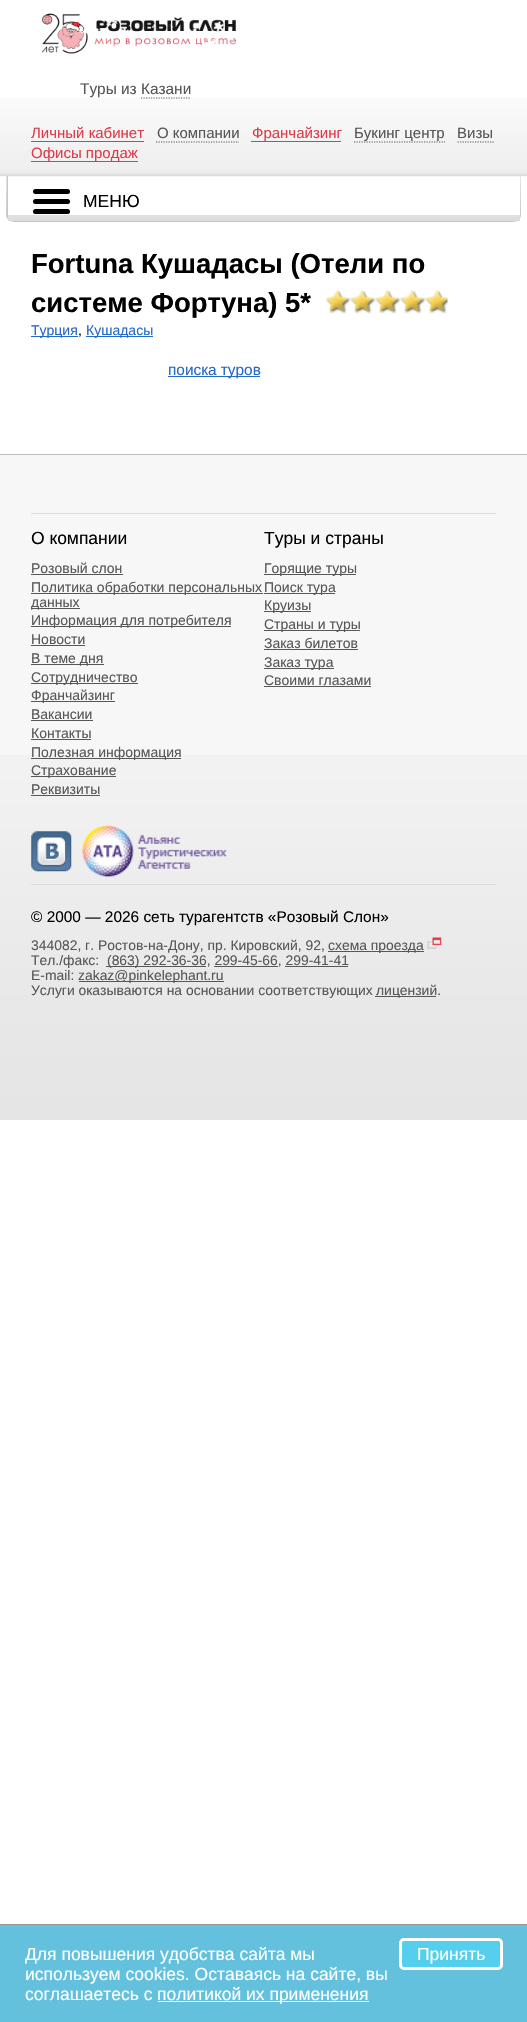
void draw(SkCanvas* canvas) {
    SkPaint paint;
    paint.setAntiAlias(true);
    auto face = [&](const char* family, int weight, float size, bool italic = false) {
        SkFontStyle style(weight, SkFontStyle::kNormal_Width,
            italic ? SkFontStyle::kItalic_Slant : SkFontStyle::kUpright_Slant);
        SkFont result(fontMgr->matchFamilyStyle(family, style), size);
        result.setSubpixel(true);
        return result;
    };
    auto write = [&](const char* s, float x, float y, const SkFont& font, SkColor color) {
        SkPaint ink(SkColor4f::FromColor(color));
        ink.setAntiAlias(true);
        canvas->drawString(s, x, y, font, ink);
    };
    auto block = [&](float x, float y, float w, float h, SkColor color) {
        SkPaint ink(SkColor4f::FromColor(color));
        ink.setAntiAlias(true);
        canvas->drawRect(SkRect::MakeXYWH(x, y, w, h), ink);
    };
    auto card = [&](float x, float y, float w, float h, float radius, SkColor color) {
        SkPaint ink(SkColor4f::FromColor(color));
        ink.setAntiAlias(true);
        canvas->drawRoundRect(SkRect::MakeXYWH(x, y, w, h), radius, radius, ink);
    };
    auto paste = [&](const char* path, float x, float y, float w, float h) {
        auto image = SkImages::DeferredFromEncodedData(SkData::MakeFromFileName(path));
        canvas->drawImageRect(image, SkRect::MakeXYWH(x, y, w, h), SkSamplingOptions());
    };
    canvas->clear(SK_ColorWHITE);
    paste("pic1.png", 0, 98, 527, 79);
    paste("pic2.png", 41, 13, 196, 41);
    auto kFont1 = face("Liberation Sans", 400, 15.4f);
    write("Туры из Казани", 80, 94, kFont1, SkColorSetRGB(87, 87, 87));
    paint.setStyle(SkPaint::kStroke_Style);
    paint.setStrokeWidth(1.2f);
    paint.setColor(SkColorSetRGB(87, 87, 87));
    paint.setPathEffect(SkDashPathEffect::Make({{1.25f, 1.25f}}, 0));
    canvas->drawPath(SkPathBuilder().moveTo(141, 98).lineTo(191, 98).detach(), paint);
    paint.setPathEffect(nullptr);
    block(31, 141, 113, 1, SkColorSetRGB(220, 60, 75));
    auto kFont2 = face("Liberation Sans", 400, 15);
    write("Личный кабинет", 31, 138, kFont2, SkColorSetRGB(220, 60, 75));
    paint.setPathEffect(SkDashPathEffect::Make({{1.25f, 1.25f}}, 0));
    canvas->drawPath(SkPathBuilder().moveTo(156, 142).lineTo(239, 142).detach(), paint);
    paint.setPathEffect(nullptr);
    write("О компании", 157, 138, kFont2, SkColorSetRGB(87, 87, 87));
    block(251, 141, 90, 1, SkColorSetRGB(220, 60, 75));
    write("Франчайзинг", 252, 138, kFont2, SkColorSetRGB(220, 60, 75));
    paint.setPathEffect(SkDashPathEffect::Make({{1.25f, 1.25f}}, 0));
    canvas->drawPath(SkPathBuilder().moveTo(354, 142).lineTo(445, 142).detach(), paint);
    paint.setPathEffect(nullptr);
    write("Букинг центр", 354, 138, kFont2, SkColorSetRGB(87, 87, 87));
    paint.setPathEffect(SkDashPathEffect::Make({{1.25f, 1.25f}}, 0));
    canvas->drawPath(SkPathBuilder().moveTo(457.5f, 142).lineTo(494, 142).detach(), paint);
    paint.setPathEffect(nullptr);
    write("Визы", 457, 138, kFont2, SkColorSetRGB(87, 87, 87));
    block(31, 161, 107, 1, SkColorSetRGB(220, 60, 75));
    write("Офисы продаж", 31, 158, kFont2, SkColorSetRGB(220, 60, 75));
    canvas->save();
    canvas->clipPath(SkPathBuilder().moveTo(6, 176).lineTo(521, 176).lineTo(521, 214).cubicTo(521, 219, 517, 223, 512, 223).lineTo(15, 223).cubicTo(10, 223, 6, 219, 6, 214).close().detach(), true);
    paint.setStyle(SkPaint::kFill_Style);
    {
        const SkColor colors[] = {SK_ColorWHITE, SkColorSetRGB(220, 220, 220)};
        const float stops[] = {0, 1};
        const SkPoint ends[] = {{264, 176}, {264, 221}};
        paint.setShader(SkGradientShader::MakeLinear(ends, colors, stops, 2, SkTileMode::kClamp));
        paint.setAlpha(255);
    }
    canvas->drawRect(SkRect::MakeXYWH(6, 215, 515, 5), paint);
    canvas->restore();
    paint.setShader(nullptr);
    paint.setColor(SkColorSetRGB(201, 201, 201));
    canvas->drawPath(SkPathBuilder().moveTo(521, 176).lineTo(521, 214).cubicTo(521, 216, 520, 218, 519, 220).lineTo(518, 219).cubicTo(519, 218, 520, 216, 520, 214).lineTo(520, 176).close().detach(), paint);
    paint.setColor(SkColorSetRGB(197, 197, 197));
    canvas->drawPath(SkPathBuilder().moveTo(519, 220).cubicTo(517, 221, 515, 222, 512, 222).lineTo(15, 222).cubicTo(13, 222, 10, 221, 9, 220).lineTo(10, 219).cubicTo(11, 220, 13, 221, 15, 221).lineTo(512, 221).cubicTo(514, 221, 516, 220, 518, 219).close().detach(), paint);
    paint.setColor(SkColorSetRGB(201, 201, 201));
    canvas->drawPath(SkPathBuilder().moveTo(9, 220).cubicTo(8, 219, 7, 218, 6, 216).lineTo(6, 176).lineTo(8, 176).lineTo(8, 214).cubicTo(8, 216, 9, 218, 10, 219).close().detach(), paint);
    {
        const SkColor colors[] = {SkColorSetRGB(229, 229, 229), SkColorSetRGB(201, 201, 201)};
        const float stops[] = {0, 1};
        const SkPoint ends[] = {{6.9f, 176}, {6.9f, 215}};
        paint.setShader(SkGradientShader::MakeLinear(ends, colors, stops, 2, SkTileMode::kClamp));
        paint.setAlpha(255);
    }
    canvas->drawRect(SkRect::MakeXYWH(6, 176, 1, 39), paint);
    {
        const SkColor colors[] = {SK_ColorWHITE, SkColorSetRGB(220, 220, 220)};
        const float stops[] = {0, 1};
        const SkPoint ends[] = {{264, 176}, {264, 221}};
        paint.setShader(SkGradientShader::MakeLinear(ends, colors, stops, 2, SkTileMode::kClamp));
        paint.setAlpha(255);
    }
    canvas->drawRect(SkRect::MakeXYWH(8, 215, 512, 6), paint);
    card(33, 189, 37, 5, 2.5f, SK_ColorBLACK);
    card(33, 199, 37, 5, 2.5f, SK_ColorBLACK);
    auto kFont3 = face("Liberation Sans", 400, 17.5f);
    write("МЕНЮ", 83, 207, kFont3, SK_ColorBLACK);
    card(33, 209, 37, 5, 2.5f, SK_ColorBLACK);
    {
        const SkColor colors[] = {SkColorSetRGB(229, 229, 229), SkColorSetRGB(201, 201, 201)};
        const float stops[] = {0, 1};
        const SkPoint ends[] = {{521, 176}, {521, 215}};
        paint.setShader(SkGradientShader::MakeLinear(ends, colors, stops, 2, SkTileMode::kClamp));
        paint.setAlpha(255);
    }
    canvas->drawRect(SkRect::MakeXYWH(520, 176, 1, 39), paint);
    auto kFont4 = face("Liberation Sans", 700, 27.5f);
    write("Fortuna Кушадасы (Отели по", 31, 273, kFont4, SK_ColorBLACK);
    write("системе Фортуна) 5*", 31, 312, kFont4, SK_ColorBLACK);
    paste("pic3.png", 326, 290, 122, 24);
    block(31, 336, 47, 1, SkColorSetRGB(36, 104, 200));
    auto kFont5 = face("Liberation Sans", 400, 14);
    write("Турция", 31, 335, kFont5, SkColorSetRGB(36, 104, 200));
    write(",", 78, 335, kFont5, SK_ColorBLACK);
    block(86, 336, 67, 1, SkColorSetRGB(36, 104, 200));
    write("Кушадасы", 86, 335, kFont5, SkColorSetRGB(36, 104, 200));
    block(168, 376, 92, 1, SkColorSetRGB(36, 104, 200));
    write("поиска туров", 168, 375, kFont1, SkColorSetRGB(36, 104, 200));
    block(0, 455, 527, 300, SkColorSetRGB(247, 247, 247));
    paste("pic4.png", 0, 755, 527, 365);
    block(0, 454, 527, 1, SkColorSetRGB(187, 187, 187));
    block(31, 513, 465, 1, SkColorSetRGB(221, 221, 221));
    write("О компании", 31, 544, kFont3, SK_ColorBLACK);
    write("Розовый слон", 31, 573, kFont5, SkColorSetRGB(87, 87, 87));
    block(31, 574, 92, 1, SkColorSetRGB(87, 87, 87));
    block(31, 593, 232, 1, SkColorSetRGB(87, 87, 87));
    write("Политика обработки персональных", 31, 592, kFont5, SkColorSetRGB(87, 87, 87));
    block(31, 608, 49, 1, SkColorSetRGB(87, 87, 87));
    write("данных", 31, 607, kFont5, SkColorSetRGB(87, 87, 87));
    block(31, 626, 200, 1, SkColorSetRGB(87, 87, 87));
    write("Информация для потребителя", 31, 625, kFont5, SkColorSetRGB(87, 87, 87));
    write("Новости", 31, 644, kFont5, SkColorSetRGB(87, 87, 87));
    block(31, 645, 54, 1, SkColorSetRGB(87, 87, 87));
    block(31, 664, 73, 1, SkColorSetRGB(87, 87, 87));
    write("В теме дня", 31, 663, kFont5, SkColorSetRGB(87, 87, 87));
    block(31, 683, 107, 1, SkColorSetRGB(87, 87, 87));
    write("Сотрудничество", 31, 682, kFont5, SkColorSetRGB(87, 87, 87));
    block(31, 701, 84, 1, SkColorSetRGB(87, 87, 87));
    write("Франчайзинг", 31, 700, kFont5, SkColorSetRGB(87, 87, 87));
    write("Вакансии", 31, 719, kFont5, SkColorSetRGB(87, 87, 87));
    block(31, 720, 62, 1, SkColorSetRGB(87, 87, 87));
    write("Контакты", 31, 738, kFont5, SkColorSetRGB(87, 87, 87));
    block(31, 739, 60, 1, SkColorSetRGB(87, 87, 87));
    block(31, 758, 150, 1, SkColorSetRGB(87, 87, 87));
    write("Полезная информация", 31, 757, kFont5, SkColorSetRGB(87, 87, 87));
    block(31, 776, 85, 1, SkColorSetRGB(87, 87, 87));
    write("Страхование", 31, 775, kFont5, SkColorSetRGB(87, 87, 87));
    write("Реквизиты", 31, 794, kFont5, SkColorSetRGB(87, 87, 87));
    block(31, 795, 69, 1, SkColorSetRGB(87, 87, 87));
    write("Туры и страны", 264, 544, kFont3, SK_ColorBLACK);
    block(264, 574, 92, 1, SkColorSetRGB(87, 87, 87));
    write("Горящие туры", 264, 573, kFont5, SkColorSetRGB(87, 87, 87));
    block(264, 593, 71, 1, SkColorSetRGB(87, 87, 87));
    write("Поиск тура", 264, 592, kFont5, SkColorSetRGB(87, 87, 87));
    block(264, 611, 47, 1, SkColorSetRGB(87, 87, 87));
    write("Круизы", 264, 610, kFont5, SkColorSetRGB(87, 87, 87));
    block(264, 630, 96, 1, SkColorSetRGB(87, 87, 87));
    write("Страны и туры", 264, 629, kFont5, SkColorSetRGB(87, 87, 87));
    write("Заказ билетов", 264, 648, kFont5, SkColorSetRGB(87, 87, 87));
    block(264, 649, 94, 1, SkColorSetRGB(87, 87, 87));
    block(264, 668, 70, 1, SkColorSetRGB(87, 87, 87));
    write("Заказ тура", 264, 667, kFont5, SkColorSetRGB(87, 87, 87));
    write("Своими глазами", 264, 685, kFont5, SkColorSetRGB(87, 87, 87));
    block(264, 686, 107, 1, SkColorSetRGB(87, 87, 87));
    paste("pic5.png", 31, 831, 41, 41);
    paste("pic6.png", 82, 825, 145, 53);
    block(31, 884, 465, 1, SkColorSetRGB(221, 221, 221));
    write("© 2000 — 2026 сеть турагентств «Розовый Слон»", 31, 922, kFont1, SK_ColorBLACK);
    auto kFont6 = face("Liberation Sans", 400, 13.9f);
    write("344082, г. Ростов-на-Дону, пр. Кировский, 92,", 31, 950, kFont6, SkColorSetRGB(87, 87, 87));
    paste("pic7.png", 427, 937, 15, 12);
    block(328, 951, 96, 1, SkColorSetRGB(87, 87, 87));
    write("схема проезда", 328, 950, kFont6, SkColorSetRGB(87, 87, 87));
    write("Тел./факс:", 31, 965, kFont6, SkColorSetRGB(87, 87, 87));
    block(106, 966, 100, 1, SkColorSetRGB(87, 87, 87));
    write("(863) 292-36-36, 299-45-66, 299-41-41", 107, 965, kFont6, SkColorSetRGB(87, 87, 87));
    block(214, 966, 64, 1, SkColorSetRGB(87, 87, 87));
    block(285, 966, 63, 1, SkColorSetRGB(87, 87, 87));
    write("E-mail:", 31, 980, kFont6, SkColorSetRGB(87, 87, 87));
    block(79, 981, 145, 1, SkColorSetRGB(87, 87, 87));
    write("zakaz@pinkelephant.ru", 78, 980, kFont6, SkColorSetRGB(87, 87, 87));
    write("Услуги оказываются на основании соответствующих", 31, 995, kFont6, SkColorSetRGB(87, 87, 87));
    block(375, 996, 61, 1, SkColorSetRGB(87, 87, 87));
    write("лицензий.", 376, 995, kFont6, SkColorSetRGB(87, 87, 87));
    block(0, 1925, 527, 97, SkColorSetRGB(100, 193, 221));
    block(0, 1924, 527, 1, SkColorSetRGB(152, 152, 152));
    write("Для повышения удобства сайта мы", 25, 1960, kFont3, SK_ColorWHITE);
    write("используем cookies. Оставаясь на сайте, вы", 25, 1980, kFont3, SK_ColorWHITE);
    write("соглашаетесь с", 25, 2000, kFont3, SK_ColorWHITE);
    block(158, 2001, 211, 1, SK_ColorWHITE);
    write("политикой их применения", 157, 2000, kFont3, SK_ColorWHITE);
    paint.setShader(nullptr);
    paint.setColor(SkColorSetRGB(84, 207, 237));
    canvas->drawRoundRect(SkRect::MakeXYWH(400.5f, 1939.5f, 101, 29), 3.5f, 3.5f, paint);
    paint.setStyle(SkPaint::kStroke_Style);
    paint.setStrokeWidth(3);
    paint.setColor(SK_ColorWHITE);
    canvas->drawRoundRect(SkRect::MakeXYWH(400.5f, 1939.5f, 101, 29), 3.5f, 3.5f, paint);
    write("Принять", 417, 1960, kFont3, SK_ColorWHITE);
}
